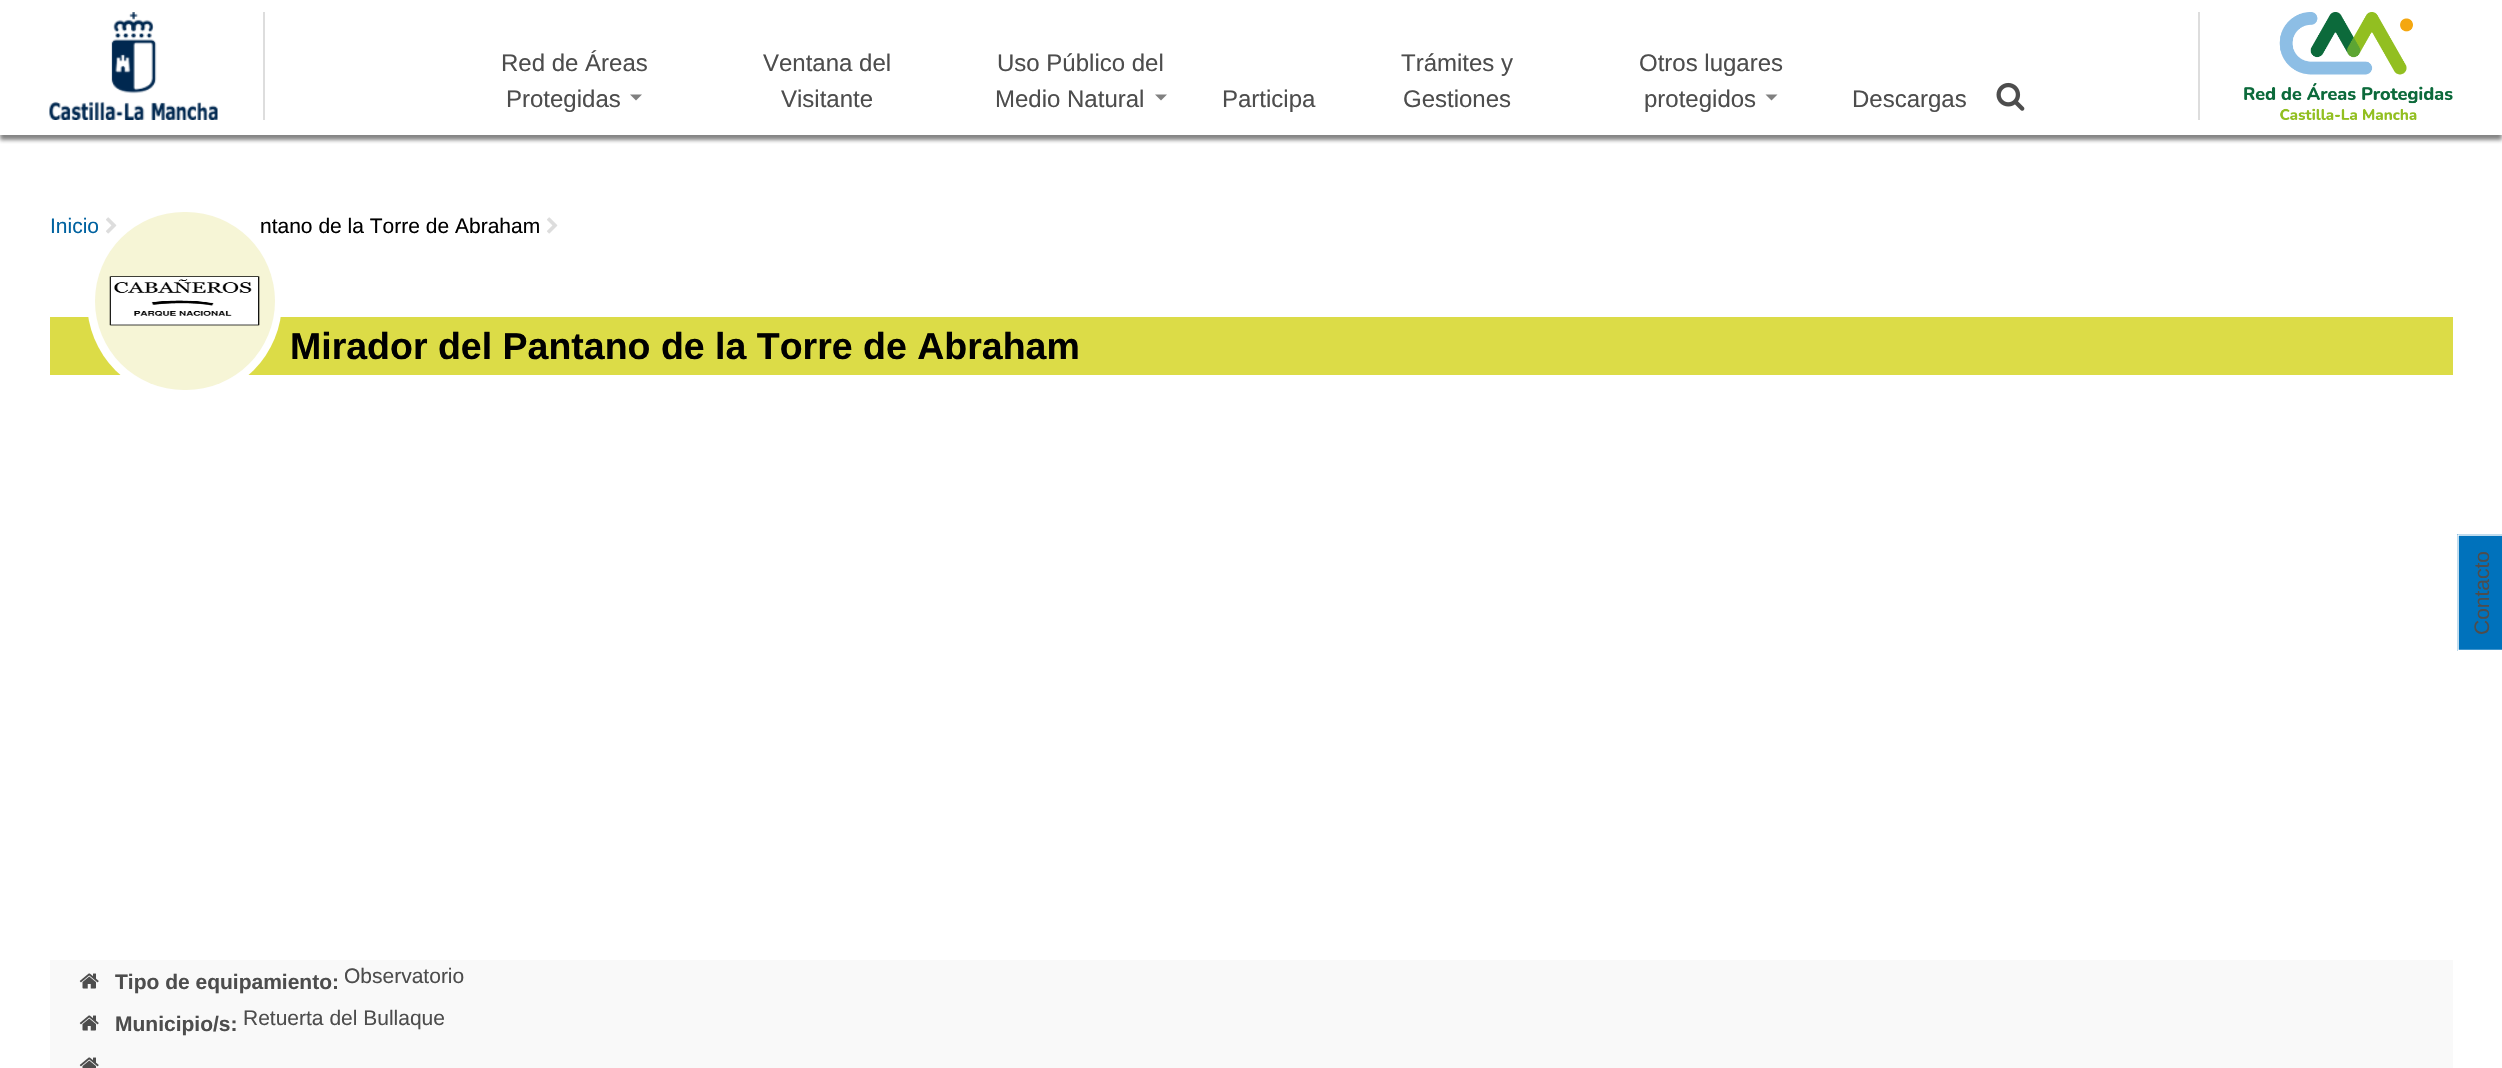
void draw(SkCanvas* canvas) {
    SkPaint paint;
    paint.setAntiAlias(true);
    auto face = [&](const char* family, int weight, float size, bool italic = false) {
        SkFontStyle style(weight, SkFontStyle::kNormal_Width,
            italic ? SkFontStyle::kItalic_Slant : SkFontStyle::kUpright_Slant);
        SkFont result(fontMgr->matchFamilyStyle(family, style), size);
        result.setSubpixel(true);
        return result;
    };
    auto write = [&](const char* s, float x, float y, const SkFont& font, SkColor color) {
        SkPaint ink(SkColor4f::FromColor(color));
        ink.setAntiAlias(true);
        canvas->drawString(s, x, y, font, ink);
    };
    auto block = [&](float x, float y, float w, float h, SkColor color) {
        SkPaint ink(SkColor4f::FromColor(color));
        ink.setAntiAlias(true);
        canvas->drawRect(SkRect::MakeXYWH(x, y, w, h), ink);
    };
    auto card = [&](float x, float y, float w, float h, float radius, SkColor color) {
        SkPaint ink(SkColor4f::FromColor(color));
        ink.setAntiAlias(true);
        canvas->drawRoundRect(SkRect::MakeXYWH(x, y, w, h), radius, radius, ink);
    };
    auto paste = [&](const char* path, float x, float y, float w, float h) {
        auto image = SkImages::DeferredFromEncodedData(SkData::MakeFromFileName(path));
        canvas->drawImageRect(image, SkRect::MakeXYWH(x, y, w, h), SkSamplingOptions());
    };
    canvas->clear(SK_ColorWHITE);
    canvas->save();
    canvas->clipRect(SkRect::MakeXYWH(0, 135, 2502, 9));
    paint.setColor(SkColorSetARGB(204, 100, 100, 100));
    paint.setMaskFilter(SkMaskFilter::MakeBlur(kNormal_SkBlurStyle, 2));
    canvas->drawRect(SkRect::MakeXYWH(0, 5, 2502, 135), paint);
    paint.setMaskFilter(nullptr);
    canvas->restore();
    block(263, 12, 2, 108, SkColorSetRGB(221, 221, 221));
    paste("pic1.png", 49, 12, 169, 108);
    auto kFont1 = face("Liberation Sans", 400, 24);
    write("Red de Áreas", 501, 71, kFont1, SkColorSetRGB(77, 77, 77));
    write("Protegidas", 506, 107, kFont1, SkColorSetRGB(77, 77, 77));
    paint.setColor(SkColorSetRGB(128, 128, 128));
    canvas->drawPath(SkPathBuilder().moveTo(630, 94.5f).lineTo(642, 94.5f).lineTo(636, 100.5f).close().detach(), paint);
    write("Ventana del", 763, 71, kFont1, SkColorSetRGB(77, 77, 77));
    write("Visitante", 781, 107, kFont1, SkColorSetRGB(77, 77, 77));
    write("Uso Público del", 997, 71, kFont1, SkColorSetRGB(77, 77, 77));
    write("Medio Natural", 995, 107, kFont1, SkColorSetRGB(77, 77, 77));
    canvas->drawPath(SkPathBuilder().moveTo(1155, 94.5f).lineTo(1167, 94.5f).lineTo(1161, 100.5f).close().detach(), paint);
    write("Participa", 1222, 107, kFont1, SkColorSetRGB(77, 77, 77));
    write("Trámites y", 1401, 71, kFont1, SkColorSetRGB(77, 77, 77));
    write("Gestiones", 1403, 107, kFont1, SkColorSetRGB(77, 77, 77));
    write("Otros lugares", 1639, 71, kFont1, SkColorSetRGB(77, 77, 77));
    write("protegidos", 1644, 107, kFont1, SkColorSetRGB(77, 77, 77));
    canvas->drawPath(SkPathBuilder().moveTo(1765.5f, 94.5f).lineTo(1777.5f, 94.5f).lineTo(1771.5f, 100.5f).close().detach(), paint);
    write("Descargas", 1852, 107, kFont1, SkColorSetRGB(77, 77, 77));
    paste("pic2.png", 1996, 82, 29, 29);
    block(2198, 12, 2, 108, SkColorSetRGB(221, 221, 221));
    paste("pic3.png", 2244, 12, 209, 108);
    auto kFont2 = face("Liberation Sans", 400, 21);
    write("Inicio", 50, 233, kFont2, SkColorSetRGB(0, 98, 160));
    paste("pic4.png", 106, 217, 11, 17);
    write("ntano de la Torre de Abraham", 260, 233, kFont2, SK_ColorBLACK);
    paste("pic4.png", 547, 217, 11, 17);
    block(50, 317, 2403, 58, SkColorSetRGB(220, 220, 71));
    auto kFont3 = face("Liberation Sans", 700, 37.5f);
    write("Mirador del Pantano de la Torre de Abraham", 290, 359, kFont3, SK_ColorBLACK);
    paint.setColor(SK_ColorWHITE);
    canvas->drawCircle(184.5f, 301.5f, 97.5f, paint);
    card(95, 212, 180, 178, 89, SkColorSetRGB(246, 245, 214));
    paste("pic5.png", 109, 276, 151, 50);
    block(50, 960, 2403, 108, SkColorSetRGB(249, 249, 249));
    paste("pic6.png", 79, 973, 20, 16);
    auto kFont4 = face("Liberation Sans", 700, 21);
    write("Tipo de equipamiento:", 115, 989, kFont4, SkColorSetRGB(77, 77, 77));
    write("Observatorio", 344, 983, kFont2, SkColorSetRGB(77, 77, 77));
    paste("pic6.png", 79, 1015, 20, 16);
    write("Municipio/s:", 115, 1031, kFont4, SkColorSetRGB(77, 77, 77));
    write("Retuerta del Bullaque", 243, 1025, kFont2, SkColorSetRGB(77, 77, 77));
    paste("pic7.png", 79, 1057, 20, 11);
    block(2457, 534, 45, 117, SkColorSetRGB(0, 114, 188));
    paint.setStyle(SkPaint::kStroke_Style);
    paint.setStrokeWidth(1.5f);
    canvas->drawPath(SkPathBuilder().moveTo(2458, 650.5f).lineTo(2458, 535).lineTo(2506, 535).lineTo(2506, 650.5f).close().detach(), paint);
    canvas->save();
    canvas->rotate(-90, 2489, 635);
    write("Contacto", 2489, 635, kFont2, SkColorSetRGB(77, 77, 77));
    canvas->restore();
}
